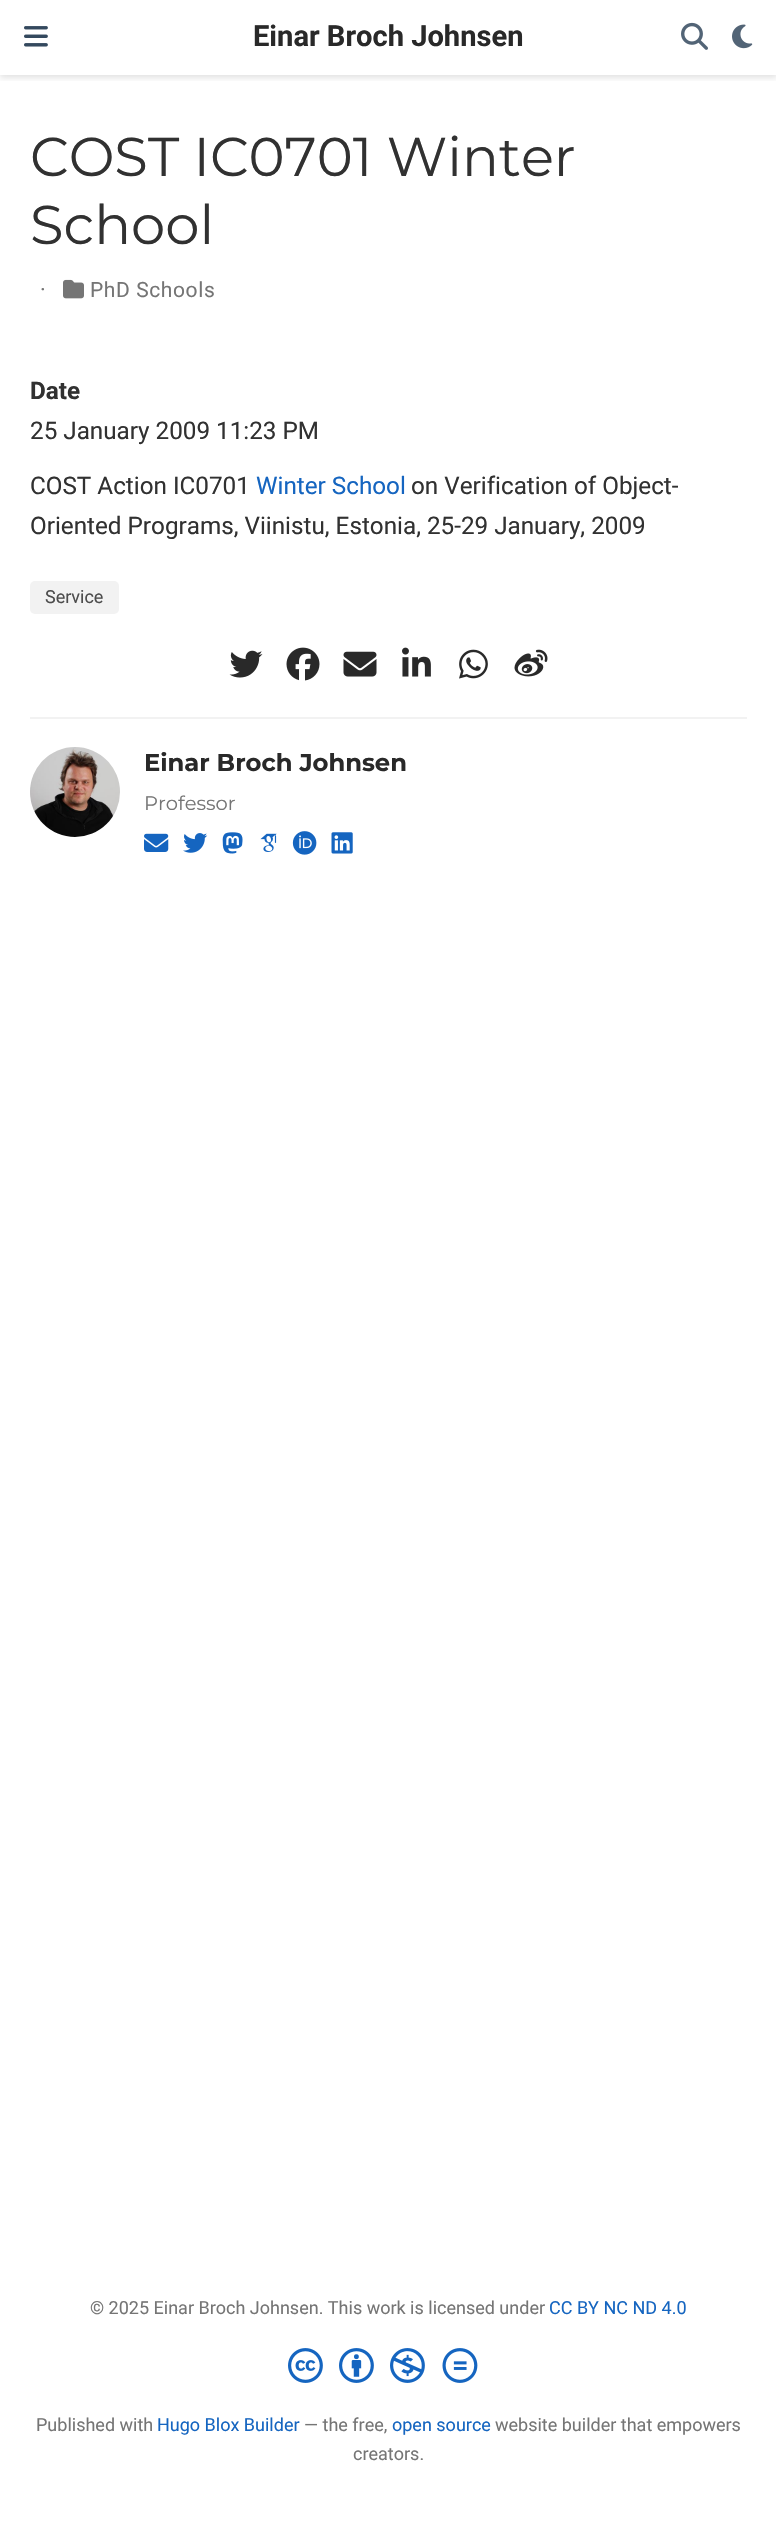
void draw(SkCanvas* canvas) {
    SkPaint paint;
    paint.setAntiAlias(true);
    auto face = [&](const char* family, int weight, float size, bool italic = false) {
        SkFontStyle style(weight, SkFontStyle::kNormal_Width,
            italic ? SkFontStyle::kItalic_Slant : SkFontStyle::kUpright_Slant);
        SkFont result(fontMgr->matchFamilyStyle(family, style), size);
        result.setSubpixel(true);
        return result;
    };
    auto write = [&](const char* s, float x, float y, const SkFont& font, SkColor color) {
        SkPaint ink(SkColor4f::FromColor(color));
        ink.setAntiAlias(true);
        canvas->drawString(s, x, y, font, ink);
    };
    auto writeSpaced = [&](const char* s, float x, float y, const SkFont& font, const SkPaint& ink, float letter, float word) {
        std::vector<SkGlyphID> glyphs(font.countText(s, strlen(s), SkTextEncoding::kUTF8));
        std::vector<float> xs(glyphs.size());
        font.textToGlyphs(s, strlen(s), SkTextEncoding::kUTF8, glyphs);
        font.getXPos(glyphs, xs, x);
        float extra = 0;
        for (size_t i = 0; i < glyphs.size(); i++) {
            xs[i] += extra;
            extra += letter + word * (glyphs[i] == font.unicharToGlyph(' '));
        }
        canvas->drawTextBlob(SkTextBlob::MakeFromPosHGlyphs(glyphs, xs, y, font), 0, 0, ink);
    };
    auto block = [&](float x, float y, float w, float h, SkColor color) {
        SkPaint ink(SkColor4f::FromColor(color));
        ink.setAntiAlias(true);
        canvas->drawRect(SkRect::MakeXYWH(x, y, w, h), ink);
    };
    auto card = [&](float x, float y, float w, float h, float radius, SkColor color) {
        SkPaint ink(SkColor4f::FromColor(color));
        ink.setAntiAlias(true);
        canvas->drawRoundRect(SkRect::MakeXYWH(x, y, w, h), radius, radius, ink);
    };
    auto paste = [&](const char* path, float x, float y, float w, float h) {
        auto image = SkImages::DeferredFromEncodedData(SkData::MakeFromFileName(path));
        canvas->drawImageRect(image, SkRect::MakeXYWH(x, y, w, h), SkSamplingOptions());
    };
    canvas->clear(SK_ColorWHITE);
    canvas->save();
    canvas->clipRect(SkRect::MakeXYWH(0, 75, 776, 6));
    paint.setColor(SkColorSetARGB(28, 0, 0, 0));
    paint.setMaskFilter(SkMaskFilter::MakeBlur(kNormal_SkBlurStyle, 3));
    canvas->drawRect(SkRect::MakeXYWH(0, 3, 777, 75), paint);
    paint.setMaskFilter(nullptr);
    canvas->restore();
    paste("pic1.png", 24, 26, 24, 21);
    auto kFont1 = face("Roboto", 700, 29.1f);
    write("Einar Broch Johnsen", 253, 46, kFont1, SkColorSetRGB(41, 41, 41));
    paste("pic2.png", 681, 22, 27, 28);
    paste("pic3.png", 732, 24, 21, 25);
    auto kFont2 = face("Montserrat", 400, 54.5f);
    write("COST IC0701 Winter", 30, 176, kFont2, SkColorSetRGB(49, 49, 49));
    write("School", 30, 244, kFont2, SkColorSetRGB(49, 49, 49));
    auto kFont3 = face("Roboto", 400, 22);
    paint.setColor(SkColorSetRGB(117, 117, 117));
    writeSpaced("·", 40, 297, kFont3, paint, 0.6f, 0);
    paste("pic4.png", 63, 279, 21, 20);
    auto kFont4 = face("Roboto", 400, 21);
    writeSpaced("PhD Schools", 90, 297, kFont4, paint, 0.6f, 0);
    auto kFont5 = face("Roboto", 700, 24.25f);
    write("Date", 30, 399, kFont5, SkColorSetRGB(49, 49, 49));
    auto kFont6 = face("Roboto", 400, 24.25f);
    write("25 January 2009 11:23 PM", 30, 439, kFont6, SkColorSetRGB(49, 49, 49));
    write("COST Action IC0701", 30, 494, kFont6, SkColorSetRGB(49, 49, 49));
    write("Winter School", 256, 494, kFont6, SkColorSetRGB(21, 101, 192));
    write("on Verification of Object-", 411, 494, kFont6, SkColorSetRGB(49, 49, 49));
    write("Oriented Programs, Viinistu, Estonia, 25-29 January, 2009", 30, 534, kFont6, SkColorSetRGB(49, 49, 49));
    card(30, 581, 89, 33, 5, SkColorSetRGB(242, 242, 242));
    auto kFont7 = face("Roboto", 400, 18);
    write("Service", 45, 603, kFont7, SkColorSetRGB(77, 77, 77));
    paste("pic5.png", 229, 650, 34, 28);
    paste("pic6.png", 286, 647, 34, 34);
    paste("pic7.png", 343, 651, 34, 26);
    paste("pic8.png", 402, 647, 29, 30);
    paste("pic9.png", 459, 649, 29, 30);
    paste("pic10.png", 514, 649, 34, 28);
    block(30, 717, 717, 2, SkColorSetRGB(242, 242, 242));
    paste("pic11.png", 30, 747, 90, 90);
    auto kFont8 = face("Montserrat", 700, 24.25f);
    write("Einar Broch Johnsen", 144, 771, kFont8, SkColorSetRGB(41, 41, 41));
    auto kFont9 = face("Montserrat", 400, 19.5f);
    write("Professor", 144, 810, kFont9, SkColorSetRGB(117, 117, 117));
    paste("pic12.png", 144, 833, 25, 19);
    paste("pic13.png", 183, 833, 25, 20);
    paste("pic14.png", 222, 832, 21, 22);
    paste("pic15.png", 260, 833, 17, 19);
    paste("pic16.png", 292, 831, 25, 24);
    paste("pic17.png", 331, 832, 22, 22);
    write("© 2025 Einar Broch Johnsen. This work is licensed under", 90, 2314, kFont7, SkColorSetRGB(117, 117, 117));
    write("CC BY NC ND 4.0", 549, 2314, kFont7, SkColorSetRGB(21, 101, 192));
    paste("pic18.png", 288, 2348, 35, 35);
    paste("pic19.png", 339, 2348, 35, 35);
    paste("pic20.png", 390, 2348, 35, 35);
    paste("pic21.png", 442, 2348, 36, 35);
    write("Published with", 36, 2431, kFont7, SkColorSetRGB(117, 117, 117));
    write("Hugo Blox Builder", 157, 2431, kFont7, SkColorSetRGB(21, 101, 192));
    write("— the free,", 304, 2431, kFont7, SkColorSetRGB(117, 117, 117));
    write("open source", 392, 2431, kFont7, SkColorSetRGB(21, 101, 192));
    write("website builder that empowers", 495, 2431, kFont7, SkColorSetRGB(117, 117, 117));
    write("creators.", 353, 2460, kFont7, SkColorSetRGB(117, 117, 117));
}
